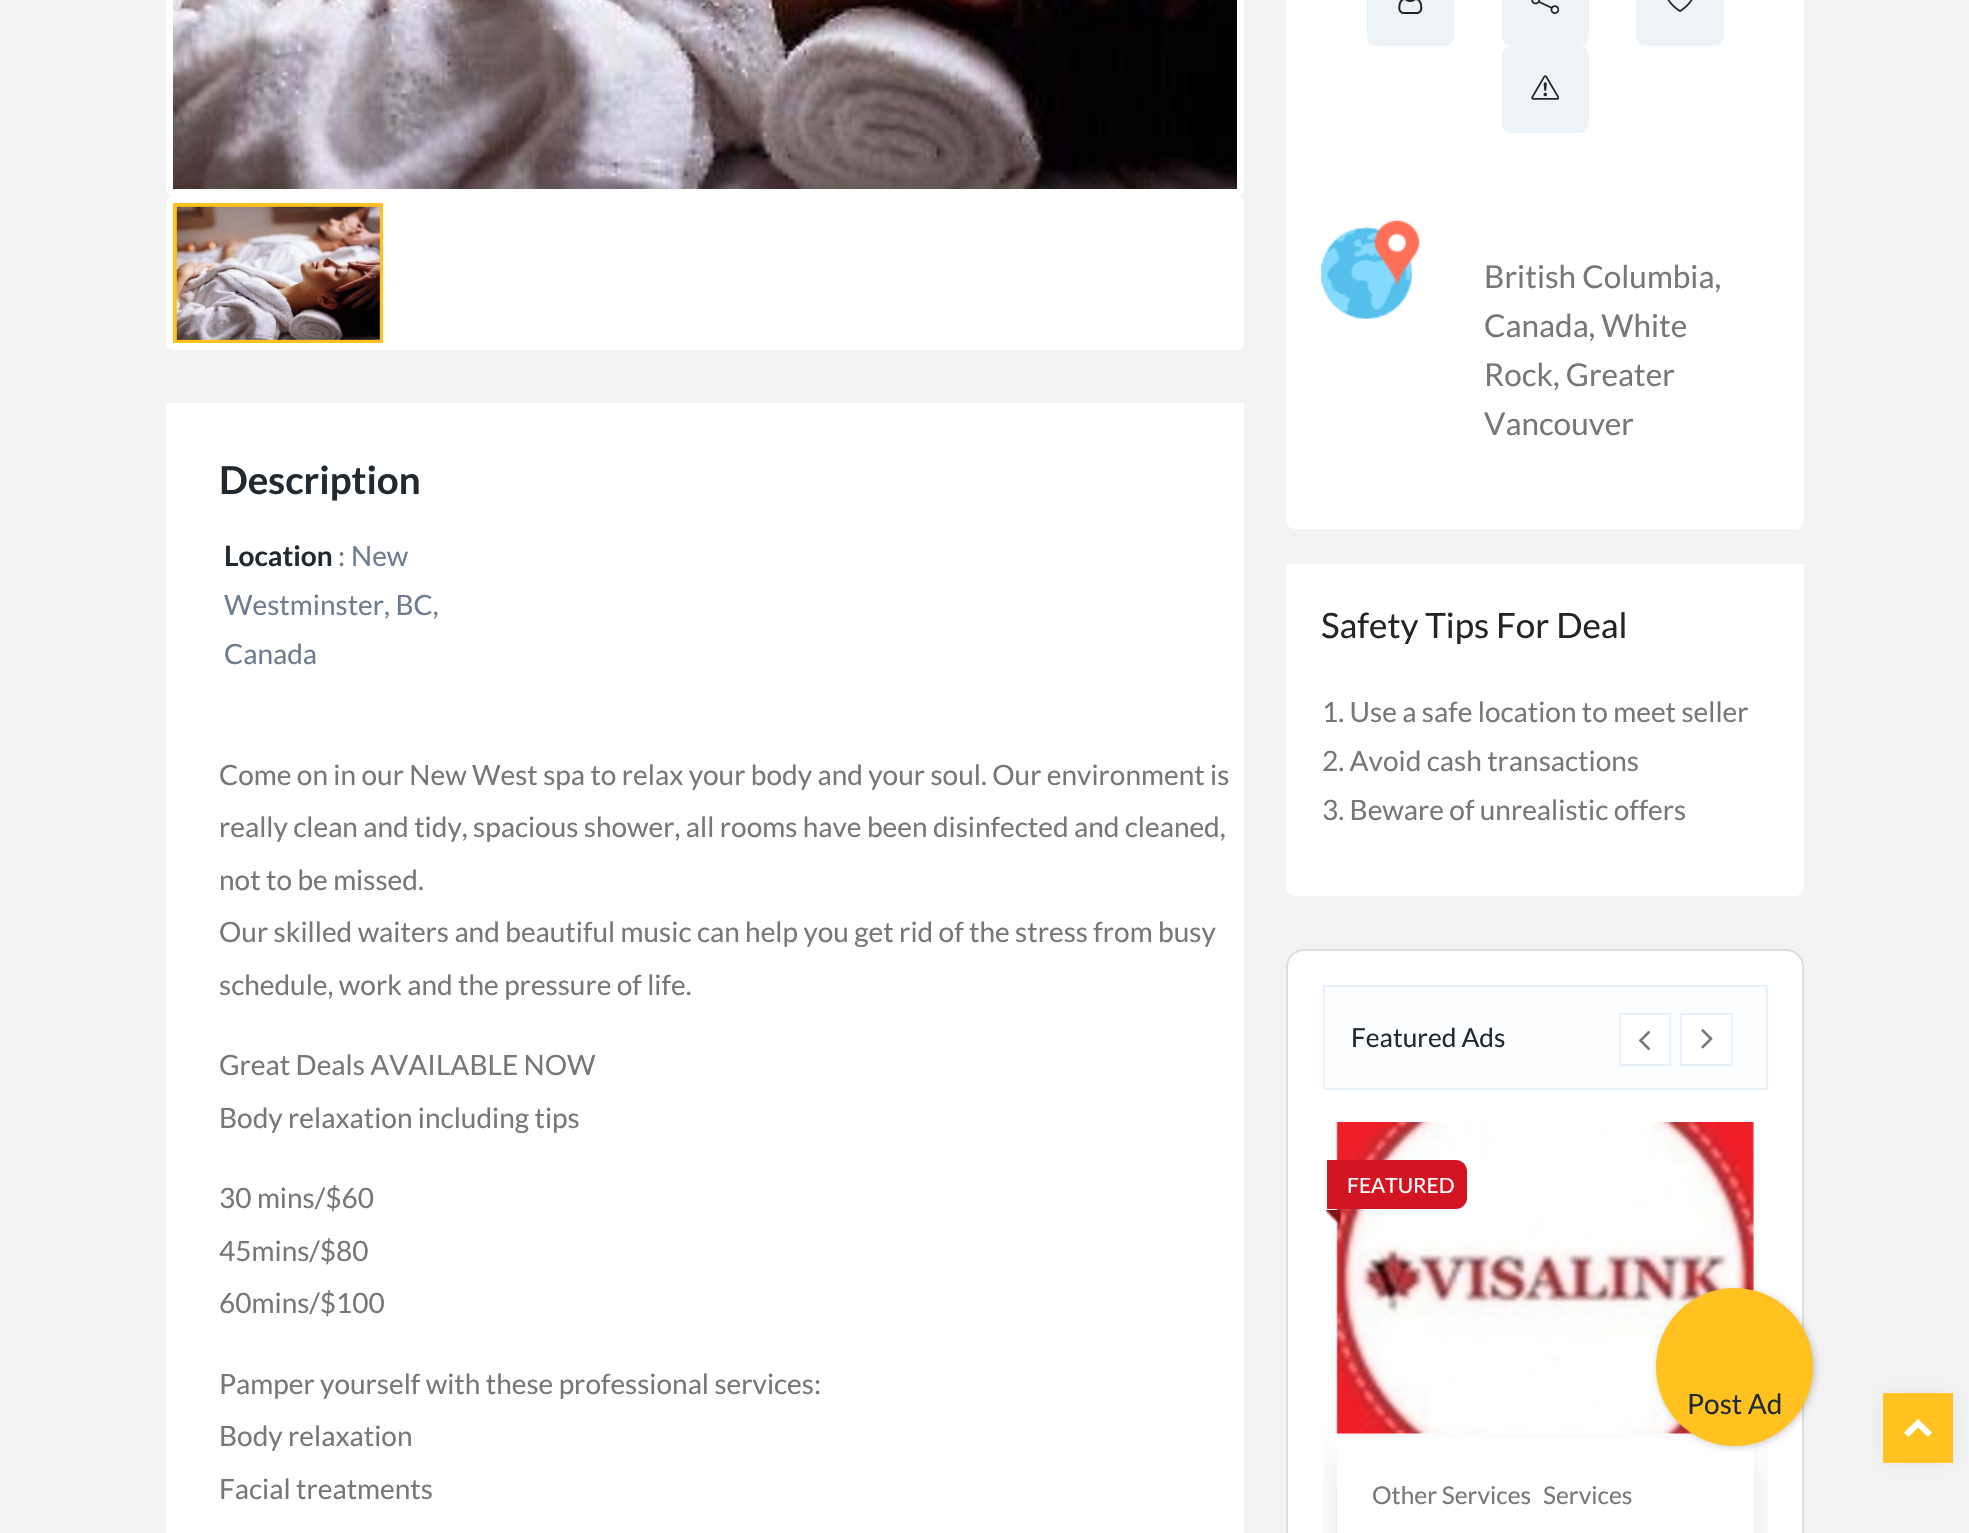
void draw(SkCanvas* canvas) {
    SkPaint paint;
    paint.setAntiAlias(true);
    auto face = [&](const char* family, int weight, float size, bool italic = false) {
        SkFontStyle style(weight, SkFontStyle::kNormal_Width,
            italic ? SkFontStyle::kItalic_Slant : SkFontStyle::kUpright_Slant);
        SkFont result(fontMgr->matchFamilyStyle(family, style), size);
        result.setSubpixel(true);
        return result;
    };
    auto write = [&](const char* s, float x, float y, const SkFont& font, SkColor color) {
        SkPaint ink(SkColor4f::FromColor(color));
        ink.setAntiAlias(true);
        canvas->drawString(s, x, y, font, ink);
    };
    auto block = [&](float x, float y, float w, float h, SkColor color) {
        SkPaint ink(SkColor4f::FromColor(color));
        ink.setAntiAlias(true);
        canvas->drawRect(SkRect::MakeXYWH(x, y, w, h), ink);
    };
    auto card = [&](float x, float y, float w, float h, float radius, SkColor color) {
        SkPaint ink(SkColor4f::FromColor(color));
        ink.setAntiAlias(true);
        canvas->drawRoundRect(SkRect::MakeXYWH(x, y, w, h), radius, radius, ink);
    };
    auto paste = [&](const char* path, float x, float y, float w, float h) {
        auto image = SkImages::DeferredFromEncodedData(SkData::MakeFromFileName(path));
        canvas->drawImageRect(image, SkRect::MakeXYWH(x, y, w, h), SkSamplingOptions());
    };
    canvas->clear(SkColorSetRGB(243, 243, 243));
    paint.setStyle(SkPaint::kStroke_Style);
    paint.setStrokeWidth(7);
    paint.setColor(SK_ColorWHITE);
    canvas->drawRoundRect(SkRect::MakeXYWH(169.5f, -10.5f, 1071, 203), 3.5f, 3.5f, paint);
    paste("pic1.png", 173, 0, 1064, 189);
    paint.setStyle(SkPaint::kFill_Style);
    canvas->drawRoundRect(SkRect::MakeXYWH(169.5f, 199.5f, 1071, 147), 3.5f, 3.5f, paint);
    paint.setStyle(SkPaint::kStroke_Style);
    canvas->drawRoundRect(SkRect::MakeXYWH(169.5f, 199.5f, 1071, 147), 3.5f, 3.5f, paint);
    paint.setStrokeWidth(4);
    paint.setColor(SkColorSetRGB(255, 194, 32));
    canvas->drawRect(SkRect::MakeXYWH(175, 205, 206, 136), paint);
    paste("pic2.png", 176, 206, 204, 134);
    block(166, 403, 1078, 1130, SK_ColorWHITE);
    auto kFont1 = face("Lato", 700, 38.5f);
    write("Description", 219, 494, kFont1, SkColorSetRGB(32, 41, 47));
    auto kFont2 = face("Lato", 700, 28);
    write("Location", 224, 566, kFont2, SkColorSetRGB(32, 41, 47));
    auto kFont3 = face("Lato", 400, 28);
    write(":", 338, 566, kFont3, SkColorSetRGB(119, 119, 119));
    write("New", 351, 566, kFont3, SkColorSetRGB(109, 124, 144));
    write("Westminster, BC,", 224, 615, kFont3, SkColorSetRGB(109, 124, 144));
    write("Canada", 224, 664, kFont3, SkColorSetRGB(109, 124, 144));
    write("Come on in our New West spa to relax your body and your soul. Our environment is", 219, 785, kFont3, SkColorSetRGB(119, 119, 119));
    write("really clean and tidy, spacious shower, all rooms have been disinfected and cleaned,", 219, 837, kFont3, SkColorSetRGB(119, 119, 119));
    write("not to be missed.", 219, 890, kFont3, SkColorSetRGB(119, 119, 119));
    write("Our skilled waiters and beautiful music can help you get rid of the stress from busy", 219, 942, kFont3, SkColorSetRGB(119, 119, 119));
    write("schedule, work and the pressure of life.", 219, 995, kFont3, SkColorSetRGB(119, 119, 119));
    write("Great Deals AVAILABLE NOW", 219, 1075, kFont3, SkColorSetRGB(119, 119, 119));
    write("Body relaxation including tips", 219, 1128, kFont3, SkColorSetRGB(119, 119, 119));
    write("30 mins/$60", 219, 1208, kFont3, SkColorSetRGB(119, 119, 119));
    write("45mins/$80", 219, 1261, kFont3, SkColorSetRGB(119, 119, 119));
    write("60mins/$100", 219, 1313, kFont3, SkColorSetRGB(119, 119, 119));
    write("Pamper yourself with these professional services:", 219, 1394, kFont3, SkColorSetRGB(119, 119, 119));
    write("Body relaxation", 219, 1446, kFont3, SkColorSetRGB(119, 119, 119));
    write("Facial treatments", 219, 1499, kFont3, SkColorSetRGB(119, 119, 119));
    block(1286, 0, 518, 168, SK_ColorWHITE);
    card(1367, -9, 87, 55, 9, SkColorSetRGB(238, 243, 247));
    paste("pic3.png", 1398, 0, 25, 14);
    card(1502, -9, 87, 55, 9, SkColorSetRGB(238, 243, 247));
    paste("pic4.png", 1531, 0, 28, 14);
    card(1636, -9, 88, 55, 9, SkColorSetRGB(238, 243, 247));
    paste("pic5.png", 1667, 0, 26, 13);
    card(1502, 46, 87, 87, 9, SkColorSetRGB(238, 243, 247));
    paste("pic6.png", 1531, 75, 28, 25);
    paint.setStyle(SkPaint::kFill_Style);
    paint.setColor(SK_ColorWHITE);
    canvas->drawPath(SkPathBuilder().moveTo(1286, 168).lineTo(1804, 168).lineTo(1804, 520).cubicTo(1804, 525, 1800, 529, 1795, 529).lineTo(1295, 529).cubicTo(1290, 529, 1286, 525, 1286, 520).close().detach(), paint);
    paste("pic7.png", 1321, 220, 99, 99);
    auto kFont4 = face("Lato", 400, 31.5f);
    write("British Columbia,", 1484, 288, kFont4, SkColorSetRGB(119, 119, 119));
    write("Canada, White", 1484, 337, kFont4, SkColorSetRGB(119, 119, 119));
    write("Rock, Greater", 1484, 386, kFont4, SkColorSetRGB(119, 119, 119));
    write("Vancouver", 1484, 435, kFont4, SkColorSetRGB(119, 119, 119));
    canvas->drawPath(SkPathBuilder().moveTo(1286, 564).lineTo(1804, 564).lineTo(1804, 887).cubicTo(1804, 892, 1800, 896, 1795, 896).lineTo(1295, 896).cubicTo(1290, 896, 1286, 892, 1286, 887).close().detach(), paint);
    auto kFont5 = face("Lato", 400, 35);
    write("Safety Tips For Deal", 1321, 638, kFont5, SkColorSetRGB(36, 36, 36));
    write("1. Use a safe location to meet seller", 1322, 722, kFont3, SkColorSetRGB(119, 119, 119));
    write("2. Avoid cash transactions", 1322, 771, kFont3, SkColorSetRGB(119, 119, 119));
    write("3. Beware of unrealistic offers", 1322, 820, kFont3, SkColorSetRGB(119, 119, 119));
    canvas->drawRoundRect(SkRect::MakeXYWH(1287, 950, 516, 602), 17, 17, paint);
    paint.setStyle(SkPaint::kStroke_Style);
    paint.setStrokeWidth(2);
    paint.setColor(SkColorSetRGB(222, 222, 222));
    canvas->drawRoundRect(SkRect::MakeXYWH(1287, 950, 516, 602), 17, 17, paint);
    paint.setStyle(SkPaint::kFill_Style);
    paint.setColor(SkColorSetRGB(251, 253, 255));
    canvas->drawRect(SkRect::MakeXYWH(1324, 986, 443, 103), paint);
    paint.setStyle(SkPaint::kStroke_Style);
    paint.setColor(SkColorSetRGB(233, 241, 252));
    canvas->drawRect(SkRect::MakeXYWH(1324, 986, 443, 103), paint);
    auto kFont6 = face("Lato", 400, 26.25f);
    write("Featured Ads", 1351, 1047, kFont6, SkColorSetRGB(32, 41, 47));
    paint.setStyle(SkPaint::kFill_Style);
    paint.setColor(SK_ColorWHITE);
    canvas->drawRect(SkRect::MakeXYWH(1620, 1014, 50, 51), paint);
    paint.setStyle(SkPaint::kStroke_Style);
    paint.setColor(SkColorSetRGB(233, 241, 252));
    canvas->drawRect(SkRect::MakeXYWH(1620, 1014, 50, 51), paint);
    paste("pic8.png", 1638, 1030, 13, 21);
    paint.setStyle(SkPaint::kFill_Style);
    paint.setColor(SK_ColorWHITE);
    canvas->drawRect(SkRect::MakeXYWH(1681, 1014, 51, 51), paint);
    paint.setStyle(SkPaint::kStroke_Style);
    paint.setColor(SkColorSetRGB(233, 241, 252));
    canvas->drawRect(SkRect::MakeXYWH(1681, 1014, 51, 51), paint);
    paste("pic9.png", 1701, 1029, 12, 20);
    canvas->save();
    canvas->clipRect(SkRect::MakeXYWH(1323, 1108, 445, 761));
    paint.setStyle(SkPaint::kFill_Style);
    paint.setColor(SkColorSetARGB(26, 0, 0, 0));
    paint.setMaskFilter(SkMaskFilter::MakeBlur(kNormal_SkBlurStyle, 17.5f));
    canvas->drawRect(SkRect::MakeXYWH(1337, 1460, 417, 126), paint);
    paint.setMaskFilter(nullptr);
    canvas->restore();
    paste("pic10.png", 1336, 1122, 418, 312);
    paint.setColor(SkColorSetRGB(211, 20, 35));
    canvas->drawPath(SkPathBuilder().moveTo(1327, 1160).lineTo(1456, 1160).cubicTo(1462, 1160, 1467, 1165, 1467, 1171).lineTo(1467, 1198).cubicTo(1467, 1204, 1462, 1209, 1456, 1209).lineTo(1327, 1209).close().detach(), paint);
    auto kFont7 = face("Lato", 400, 21);
    write("FEATURED", 1347, 1193, kFont7, SK_ColorWHITE);
    paste("pic11.png", 1326, 1210, 16, 16);
    block(1337, 1438, 417, 95, SK_ColorWHITE);
    auto kFont8 = face("Lato", 400, 24.5f);
    write("Other Services", 1372, 1504, kFont8, SkColorSetRGB(119, 119, 119));
    write("Services", 1543, 1504, kFont8, SkColorSetRGB(119, 119, 119));
    paint.setColor(SkColorSetARGB(13, 0, 0, 0));
    paint.setMaskFilter(SkMaskFilter::MakeBlur(kNormal_SkBlurStyle, 9));
    canvas->drawRect(SkRect::MakeXYWH(1883, 1393, 70, 70), paint);
    paint.setMaskFilter(nullptr);
    block(1883, 1393, 70, 70, SkColorSetRGB(255, 194, 32));
    paint.setColor(SK_ColorWHITE);
    canvas->drawPath(SkPathBuilder().moveTo(1918, 1419).lineTo(1932, 1432.5f).lineTo(1928, 1437).lineTo(1918, 1427.5f).lineTo(1908.5f, 1437).lineTo(1904, 1432.5f).close().detach(), paint);
    paint.setColor(SkColorSetARGB(51, 0, 0, 0));
    paint.setMaskFilter(SkMaskFilter::MakeBlur(kNormal_SkBlurStyle, 3.5f));
    canvas->drawRoundRect(SkRect::MakeXYWH(1657, 1290, 158, 157), 78.5f, 78.5f, paint);
    paint.setMaskFilter(nullptr);
    paint.setColor(SkColorSetRGB(255, 194, 32));
    canvas->drawRoundRect(SkRect::MakeXYWH(1657, 1289, 155, 156), 77.5f, 77.5f, paint);
    paint.setStyle(SkPaint::kStroke_Style);
    canvas->drawRoundRect(SkRect::MakeXYWH(1657, 1289, 155, 156), 77.5f, 77.5f, paint);
    write("Post Ad", 1687, 1414, kFont3, SkColorSetRGB(32, 41, 47));
}
